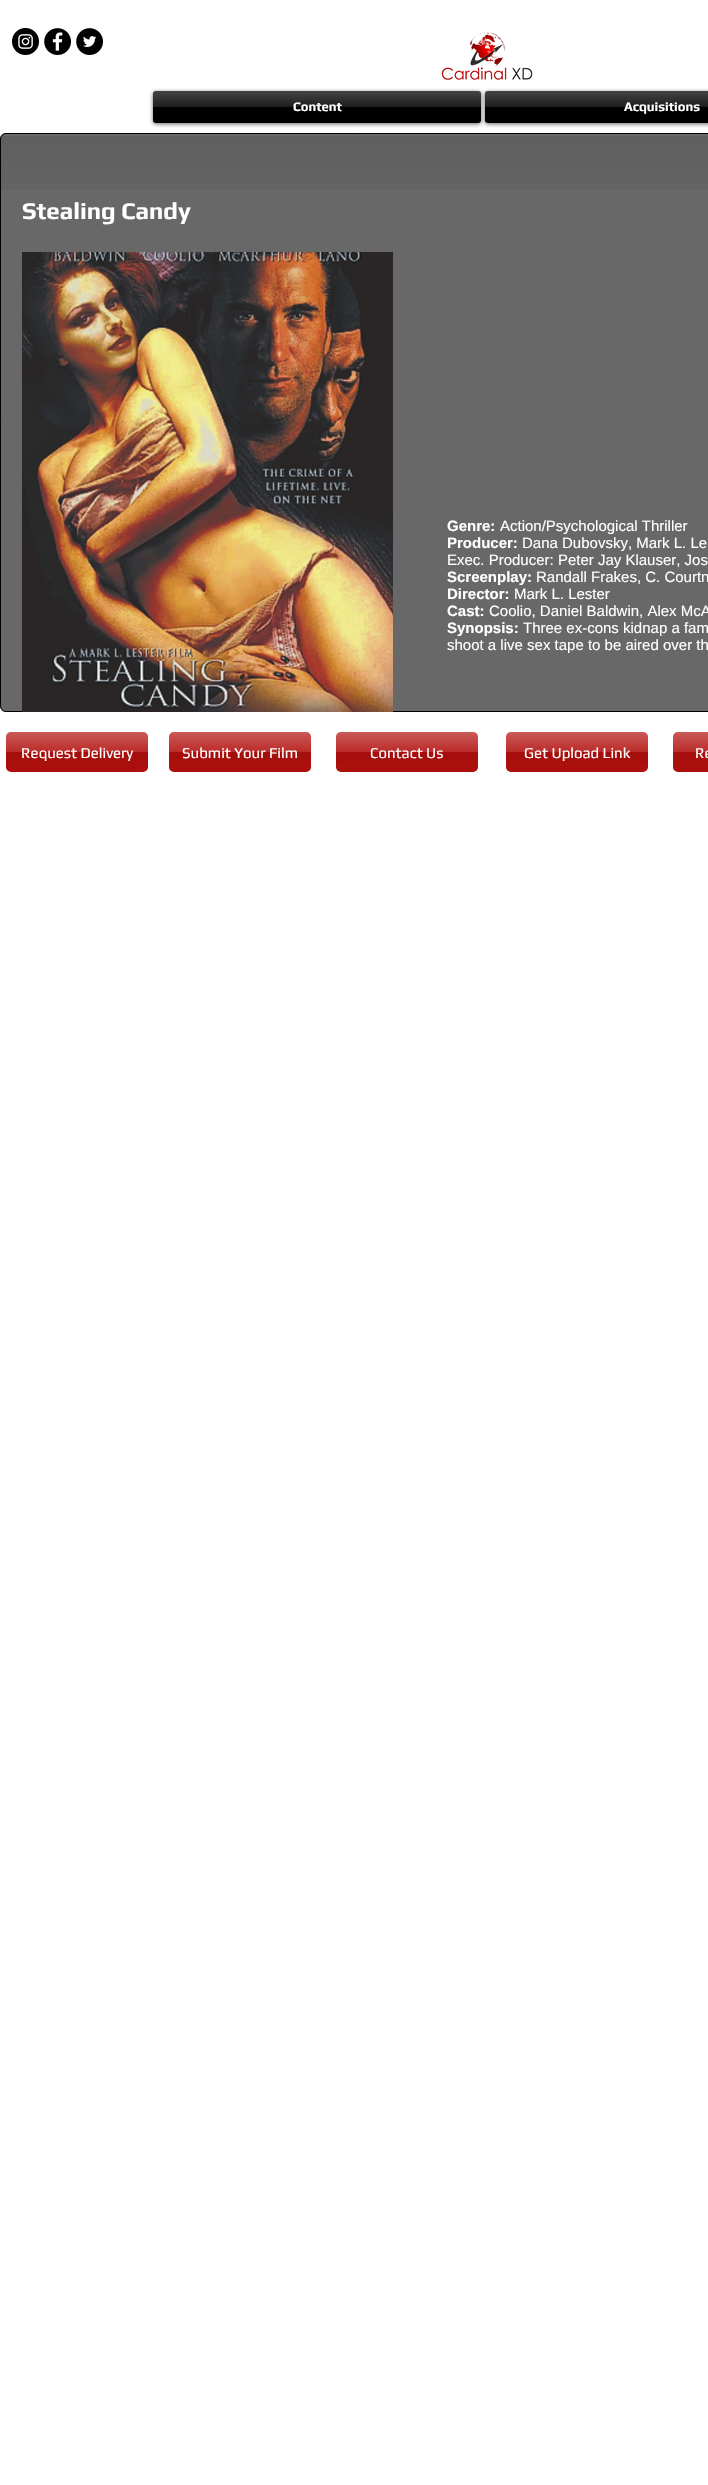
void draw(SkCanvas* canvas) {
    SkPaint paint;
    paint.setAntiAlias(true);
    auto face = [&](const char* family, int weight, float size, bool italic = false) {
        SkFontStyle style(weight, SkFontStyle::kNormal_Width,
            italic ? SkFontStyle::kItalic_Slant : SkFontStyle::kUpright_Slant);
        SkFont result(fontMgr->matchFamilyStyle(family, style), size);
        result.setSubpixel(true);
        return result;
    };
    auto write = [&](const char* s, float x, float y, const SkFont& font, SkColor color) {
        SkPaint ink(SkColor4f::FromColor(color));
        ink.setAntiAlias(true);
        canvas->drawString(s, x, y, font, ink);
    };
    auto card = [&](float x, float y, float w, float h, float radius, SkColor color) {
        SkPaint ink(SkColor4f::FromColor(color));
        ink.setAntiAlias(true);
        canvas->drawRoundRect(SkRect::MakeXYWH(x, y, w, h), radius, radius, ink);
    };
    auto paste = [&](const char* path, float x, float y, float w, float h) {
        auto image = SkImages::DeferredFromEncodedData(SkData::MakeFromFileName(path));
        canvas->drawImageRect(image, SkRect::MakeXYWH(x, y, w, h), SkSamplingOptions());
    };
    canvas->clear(SK_ColorWHITE);
    paste("pic1.png", 12, 28, 27, 27);
    paste("pic2.png", 44, 28, 27, 27);
    paste("pic3.png", 76, 28, 27, 27);
    paste("pic4.png", 441, 32, 92, 48);
    paint.setColor(SkColorSetARGB(153, 0, 0, 0));
    paint.setMaskFilter(SkMaskFilter::MakeBlur(kNormal_SkBlurStyle, 2));
    canvas->drawRoundRect(SkRect::MakeXYWH(153, 92, 328, 32), 3, 3, paint);
    paint.setMaskFilter(nullptr);
    card(153, 91, 328, 32, 3, SK_ColorBLACK);
    paste("pic5.png", 153, 91, 328, 16);
    auto kFont1 = face("Play", 700, 13);
    write("Content", 293, 111, kFont1, SK_ColorWHITE);
    paint.setMaskFilter(SkMaskFilter::MakeBlur(kNormal_SkBlurStyle, 2));
    canvas->drawRoundRect(SkRect::MakeXYWH(485, 92, 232, 32), 3, 3, paint);
    paint.setMaskFilter(nullptr);
    card(485, 91, 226, 32, 3, SK_ColorBLACK);
    paste("pic6.png", 485, 91, 223, 16);
    write("Acquisitions", 624, 111, kFont1, SK_ColorWHITE);
    card(0, 133, 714, 579, 6, SkColorSetRGB(104, 104, 104));
    paste("pic7.png", 0, 136, 708, 54);
    paint.setStyle(SkPaint::kStroke_Style);
    paint.setStrokeWidth(1);
    paint.setColor(SK_ColorBLACK);
    canvas->drawRoundRect(SkRect::MakeXYWH(0.5f, 133.5f, 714, 578), 5.5f, 5.5f, paint);
    auto kFont2 = face("Play", 700, 24);
    write("Stealing Candy", 22, 219, kFont2, SK_ColorWHITE);
    paste("pic8.png", 22, 252, 371, 460);
    auto kFont3 = face("Liberation Sans", 700, 15);
    write("Genre:", 447, 531, kFont3, SK_ColorWHITE);
    auto kFont4 = face("Liberation Sans", 400, 15);
    write("Action/Psychological Thriller", 500, 531, kFont4, SK_ColorWHITE);
    write("Producer:", 447, 548, kFont3, SK_ColorWHITE);
    write("Dana Dubovsky, Mark L. Le", 522, 548, kFont4, SK_ColorWHITE);
    write("Exec. Producer: Peter Jay Klauser, Jos", 447, 565, kFont4, SK_ColorWHITE);
    write("Screenplay:", 447, 582, kFont3, SK_ColorWHITE);
    write("Randall Frakes, C. Courtn", 536, 582, kFont4, SK_ColorWHITE);
    write("Director:", 447, 599, kFont3, SK_ColorWHITE);
    write("Mark L. Lester", 514, 599, kFont4, SK_ColorWHITE);
    write("Cast:", 447, 616, kFont3, SK_ColorWHITE);
    write("Coolio, Daniel Baldwin, Alex McA", 489, 616, kFont4, SK_ColorWHITE);
    write("Synopsis:", 447, 633, kFont3, SK_ColorWHITE);
    write("Three ex-cons kidnap a fam", 523, 633, kFont4, SK_ColorWHITE);
    write("shoot a live sex tape to be aired over th", 447, 650, kFont4, SK_ColorWHITE);
    card(6, 732, 142, 40, 5, SkColorSetRGB(178, 15, 12));
    paste("pic9.png", 6, 732, 142, 40);
    auto kFont5 = face("Play", 400, 15);
    write("Request Delivery", 21, 758, kFont5, SK_ColorWHITE);
    card(169, 732, 142, 40, 5, SkColorSetRGB(178, 15, 12));
    paste("pic9.png", 169, 732, 142, 40);
    write("Submit Your Film", 182, 758, kFont5, SK_ColorWHITE);
    card(336, 732, 142, 40, 5, SkColorSetRGB(178, 15, 12));
    paste("pic9.png", 336, 732, 142, 40);
    write("Contact Us", 370, 758, kFont5, SK_ColorWHITE);
    card(506, 732, 142, 40, 5, SkColorSetRGB(178, 15, 12));
    paste("pic10.png", 506, 732, 142, 40);
    write("Get Upload Link", 524, 758, kFont5, SK_ColorWHITE);
    card(673, 732, 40, 40, 5, SkColorSetRGB(178, 15, 12));
    paste("pic11.png", 673, 732, 35, 40);
    write("Re", 695, 758, kFont5, SK_ColorWHITE);
}
